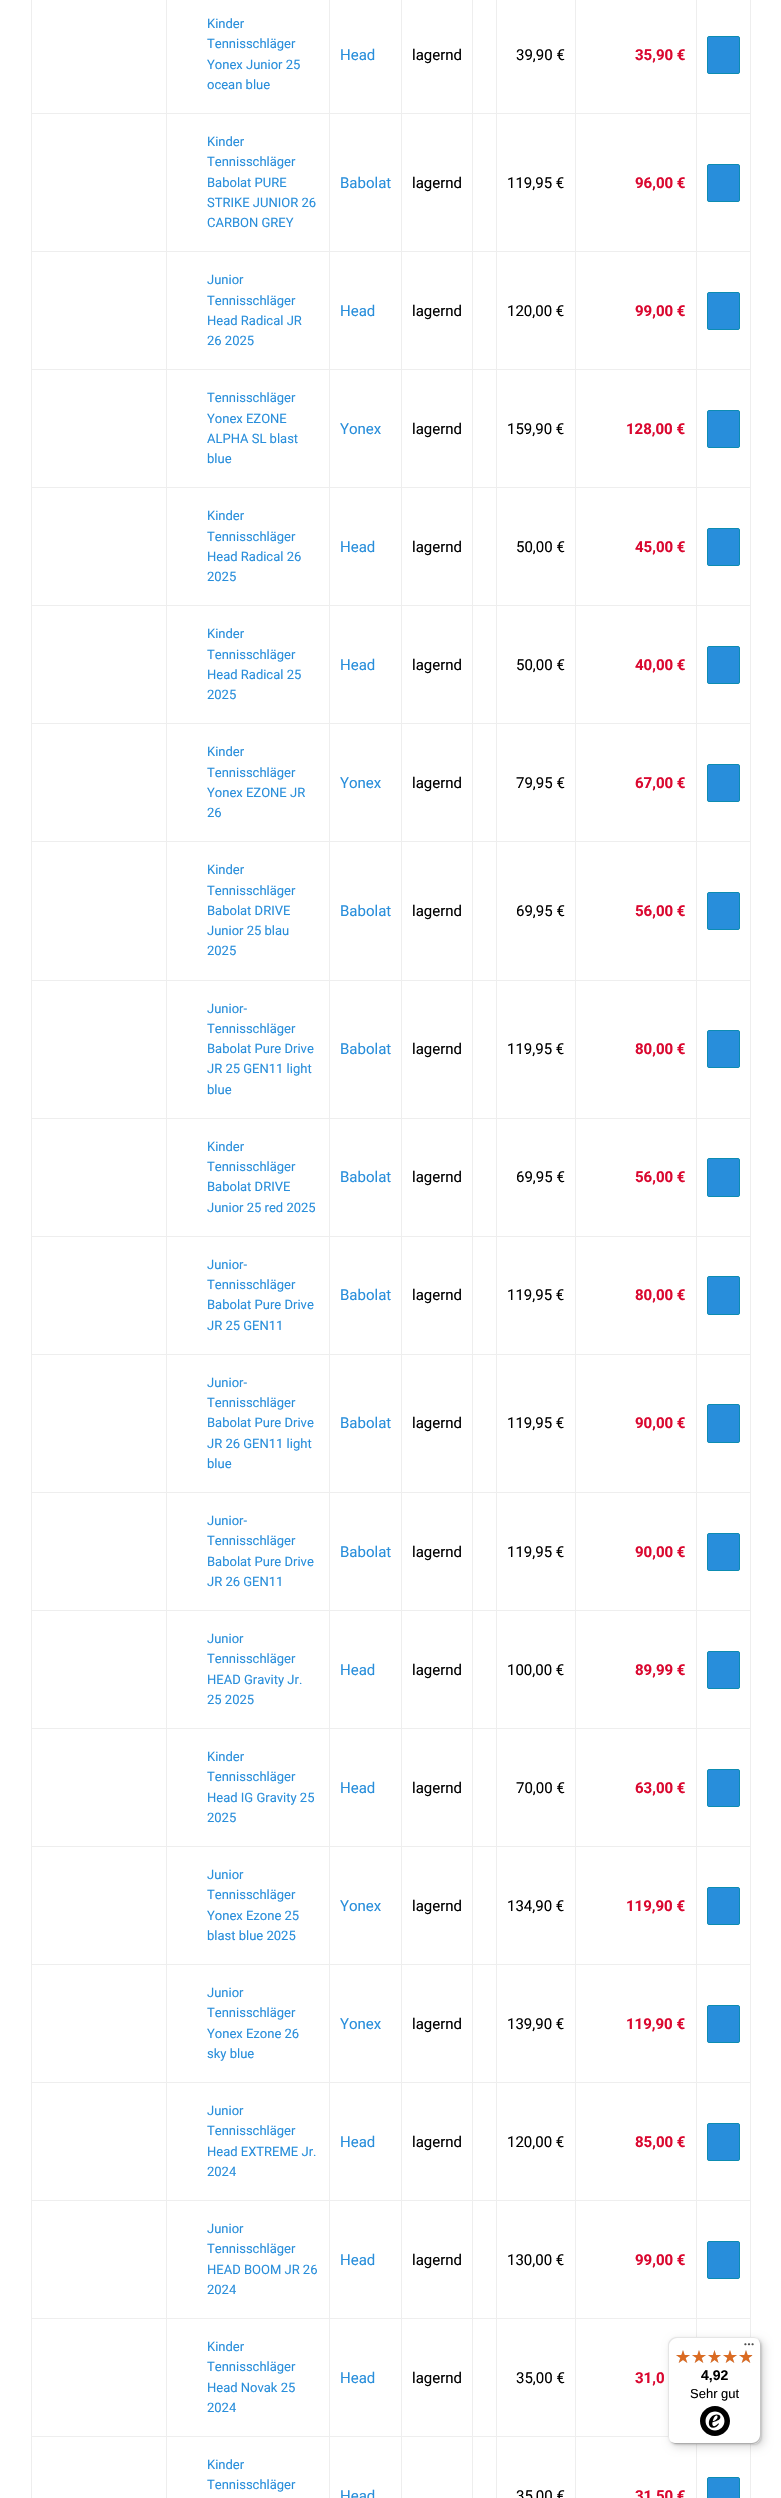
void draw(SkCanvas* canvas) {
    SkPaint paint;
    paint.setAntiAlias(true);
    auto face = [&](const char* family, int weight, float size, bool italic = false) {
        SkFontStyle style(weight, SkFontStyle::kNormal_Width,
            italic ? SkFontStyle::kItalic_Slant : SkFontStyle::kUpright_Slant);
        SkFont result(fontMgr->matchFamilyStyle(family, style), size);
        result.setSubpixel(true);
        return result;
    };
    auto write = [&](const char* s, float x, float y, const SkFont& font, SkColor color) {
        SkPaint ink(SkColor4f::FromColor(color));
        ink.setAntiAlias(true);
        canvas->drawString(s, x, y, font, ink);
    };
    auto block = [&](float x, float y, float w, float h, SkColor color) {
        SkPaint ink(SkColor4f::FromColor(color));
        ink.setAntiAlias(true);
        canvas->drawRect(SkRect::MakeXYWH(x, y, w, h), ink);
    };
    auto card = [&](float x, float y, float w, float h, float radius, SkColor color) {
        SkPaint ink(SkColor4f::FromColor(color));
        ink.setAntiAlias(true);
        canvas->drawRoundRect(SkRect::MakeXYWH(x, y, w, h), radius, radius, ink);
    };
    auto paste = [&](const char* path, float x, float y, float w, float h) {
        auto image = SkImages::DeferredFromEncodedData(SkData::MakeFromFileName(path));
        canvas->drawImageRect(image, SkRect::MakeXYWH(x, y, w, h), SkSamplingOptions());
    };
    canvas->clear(SK_ColorWHITE);
    block(166, 0, 1, 2498, SkColorSetRGB(238, 238, 238));
    block(31, 113, 136, 1, SkColorSetRGB(238, 238, 238));
    block(31, 0, 1, 114, SkColorSetRGB(238, 238, 238));
    block(329, 0, 1, 2498, SkColorSetRGB(238, 238, 238));
    block(167, 113, 163, 1, SkColorSetRGB(238, 238, 238));
    auto kFont1 = face("Roboto", 400, 13);
    write("Kinder", 207, 28, kFont1, SkColorSetRGB(40, 142, 219));
    write("Tennisschläger", 207, 48, kFont1, SkColorSetRGB(40, 142, 219));
    write("Yonex Junior 25", 207, 69, kFont1, SkColorSetRGB(40, 142, 219));
    write("ocean blue", 207, 89, kFont1, SkColorSetRGB(40, 142, 219));
    block(401, 0, 1, 2498, SkColorSetRGB(238, 238, 238));
    block(330, 113, 72, 1, SkColorSetRGB(238, 238, 238));
    auto kFont2 = face("Roboto", 400, 15);
    write("Head", 340, 60, kFont2, SkColorSetRGB(40, 142, 219));
    block(472, 0, 1, 2498, SkColorSetRGB(238, 238, 238));
    block(402, 113, 71, 1, SkColorSetRGB(238, 238, 238));
    write("lagernd", 412, 60, kFont2, SK_ColorBLACK);
    block(496, 0, 1, 2498, SkColorSetRGB(238, 238, 238));
    block(473, 113, 24, 1, SkColorSetRGB(238, 238, 238));
    block(575, 0, 1, 2498, SkColorSetRGB(238, 238, 238));
    block(497, 113, 79, 1, SkColorSetRGB(238, 238, 238));
    write("39,90 €", 516, 60, kFont2, SK_ColorBLACK);
    block(696, 0, 1, 2337, SkColorSetRGB(238, 238, 238));
    block(576, 113, 121, 1, SkColorSetRGB(238, 238, 238));
    auto kFont3 = face("Roboto", 700, 15);
    write("35,90 €", 635, 60, kFont3, SkColorSetRGB(218, 7, 47));
    block(750, 0, 1, 2337, SkColorSetRGB(238, 238, 238));
    block(697, 113, 54, 1, SkColorSetRGB(238, 238, 238));
    paint.setColor(SkColorSetRGB(40, 142, 219));
    canvas->drawRoundRect(SkRect::MakeXYWH(707.5f, 36.5f, 32, 37), 1.5f, 1.5f, paint);
    paint.setStyle(SkPaint::kStroke_Style);
    paint.setStrokeWidth(1);
    paint.setColor(SkColorSetRGB(13, 140, 178));
    canvas->drawRoundRect(SkRect::MakeXYWH(707.5f, 36.5f, 32, 37), 1.5f, 1.5f, paint);
    block(31, 251, 136, 1, SkColorSetRGB(238, 238, 238));
    block(31, 114, 1, 138, SkColorSetRGB(238, 238, 238));
    block(167, 251, 163, 1, SkColorSetRGB(238, 238, 238));
    write("Kinder", 207, 146, kFont1, SkColorSetRGB(40, 142, 219));
    write("Tennisschläger", 207, 166, kFont1, SkColorSetRGB(40, 142, 219));
    write("Babolat PURE", 207, 187, kFont1, SkColorSetRGB(40, 142, 219));
    write("STRIKE JUNIOR 26", 207, 207, kFont1, SkColorSetRGB(40, 142, 219));
    write("CARBON GREY", 207, 227, kFont1, SkColorSetRGB(40, 142, 219));
    block(330, 251, 246, 1, SkColorSetRGB(238, 238, 238));
    write("Babolat", 340, 188, kFont2, SkColorSetRGB(40, 142, 219));
    write("lagernd", 412, 188, kFont2, SK_ColorBLACK);
    write("119,95 €", 507, 188, kFont2, SK_ColorBLACK);
    block(576, 251, 121, 1, SkColorSetRGB(238, 238, 238));
    write("96,00 €", 635, 188, kFont3, SkColorSetRGB(218, 7, 47));
    block(697, 251, 54, 1, SkColorSetRGB(238, 238, 238));
    paint.setStyle(SkPaint::kFill_Style);
    paint.setColor(SkColorSetRGB(40, 142, 219));
    canvas->drawRoundRect(SkRect::MakeXYWH(707.5f, 164.5f, 32, 37), 1.5f, 1.5f, paint);
    paint.setStyle(SkPaint::kStroke_Style);
    paint.setColor(SkColorSetRGB(13, 140, 178));
    canvas->drawRoundRect(SkRect::MakeXYWH(707.5f, 164.5f, 32, 37), 1.5f, 1.5f, paint);
    block(31, 369, 136, 1, SkColorSetRGB(238, 238, 238));
    block(31, 252, 1, 118, SkColorSetRGB(238, 238, 238));
    block(167, 369, 163, 1, SkColorSetRGB(238, 238, 238));
    write("Junior", 207, 284, kFont1, SkColorSetRGB(40, 142, 219));
    write("Tennisschläger", 207, 305, kFont1, SkColorSetRGB(40, 142, 219));
    write("Head Radical JR", 207, 325, kFont1, SkColorSetRGB(40, 142, 219));
    write("26 2025", 207, 345, kFont1, SkColorSetRGB(40, 142, 219));
    block(330, 369, 246, 1, SkColorSetRGB(238, 238, 238));
    write("Head", 340, 316, kFont2, SkColorSetRGB(40, 142, 219));
    write("lagernd", 412, 316, kFont2, SK_ColorBLACK);
    write("120,00 €", 507, 316, kFont2, SK_ColorBLACK);
    block(576, 369, 121, 1, SkColorSetRGB(238, 238, 238));
    write("99,00 €", 635, 316, kFont3, SkColorSetRGB(218, 7, 47));
    block(697, 369, 54, 1, SkColorSetRGB(238, 238, 238));
    paint.setStyle(SkPaint::kFill_Style);
    paint.setColor(SkColorSetRGB(40, 142, 219));
    canvas->drawRoundRect(SkRect::MakeXYWH(707.5f, 292.5f, 32, 37), 1.5f, 1.5f, paint);
    paint.setStyle(SkPaint::kStroke_Style);
    paint.setColor(SkColorSetRGB(13, 140, 178));
    canvas->drawRoundRect(SkRect::MakeXYWH(707.5f, 292.5f, 32, 37), 1.5f, 1.5f, paint);
    block(31, 487, 136, 1, SkColorSetRGB(238, 238, 238));
    block(31, 370, 1, 118, SkColorSetRGB(238, 238, 238));
    block(167, 487, 163, 1, SkColorSetRGB(238, 238, 238));
    write("Tennisschläger", 207, 402, kFont1, SkColorSetRGB(40, 142, 219));
    write("Yonex EZONE", 207, 423, kFont1, SkColorSetRGB(40, 142, 219));
    write("ALPHA SL blast", 207, 443, kFont1, SkColorSetRGB(40, 142, 219));
    write("blue", 207, 463, kFont1, SkColorSetRGB(40, 142, 219));
    block(330, 487, 246, 1, SkColorSetRGB(238, 238, 238));
    write("Yonex", 340, 434, kFont2, SkColorSetRGB(40, 142, 219));
    write("lagernd", 412, 434, kFont2, SK_ColorBLACK);
    write("159,90 €", 507, 434, kFont2, SK_ColorBLACK);
    block(576, 487, 121, 1, SkColorSetRGB(238, 238, 238));
    write("128,00 €", 626, 434, kFont3, SkColorSetRGB(218, 7, 47));
    block(697, 487, 54, 1, SkColorSetRGB(238, 238, 238));
    paint.setStyle(SkPaint::kFill_Style);
    paint.setColor(SkColorSetRGB(40, 142, 219));
    canvas->drawRoundRect(SkRect::MakeXYWH(707.5f, 410.5f, 32, 37), 1.5f, 1.5f, paint);
    paint.setStyle(SkPaint::kStroke_Style);
    paint.setColor(SkColorSetRGB(13, 140, 178));
    canvas->drawRoundRect(SkRect::MakeXYWH(707.5f, 410.5f, 32, 37), 1.5f, 1.5f, paint);
    block(31, 605, 136, 1, SkColorSetRGB(238, 238, 238));
    block(31, 488, 1, 118, SkColorSetRGB(238, 238, 238));
    block(167, 605, 163, 1, SkColorSetRGB(238, 238, 238));
    write("Kinder", 207, 520, kFont1, SkColorSetRGB(40, 142, 219));
    write("Tennisschläger", 207, 541, kFont1, SkColorSetRGB(40, 142, 219));
    write("Head Radical 26", 207, 561, kFont1, SkColorSetRGB(40, 142, 219));
    write("2025", 207, 581, kFont1, SkColorSetRGB(40, 142, 219));
    block(330, 605, 246, 1, SkColorSetRGB(238, 238, 238));
    write("Head", 340, 552, kFont2, SkColorSetRGB(40, 142, 219));
    write("lagernd", 412, 552, kFont2, SK_ColorBLACK);
    write("50,00 €", 516, 552, kFont2, SK_ColorBLACK);
    block(576, 605, 121, 1, SkColorSetRGB(238, 238, 238));
    write("45,00 €", 635, 552, kFont3, SkColorSetRGB(218, 7, 47));
    block(697, 605, 54, 1, SkColorSetRGB(238, 238, 238));
    paint.setStyle(SkPaint::kFill_Style);
    paint.setColor(SkColorSetRGB(40, 142, 219));
    canvas->drawRoundRect(SkRect::MakeXYWH(707.5f, 528.5f, 32, 37), 1.5f, 1.5f, paint);
    paint.setStyle(SkPaint::kStroke_Style);
    paint.setColor(SkColorSetRGB(13, 140, 178));
    canvas->drawRoundRect(SkRect::MakeXYWH(707.5f, 528.5f, 32, 37), 1.5f, 1.5f, paint);
    block(31, 723, 136, 1, SkColorSetRGB(238, 238, 238));
    block(31, 606, 1, 118, SkColorSetRGB(238, 238, 238));
    block(167, 723, 163, 1, SkColorSetRGB(238, 238, 238));
    write("Kinder", 207, 638, kFont1, SkColorSetRGB(40, 142, 219));
    write("Tennisschläger", 207, 659, kFont1, SkColorSetRGB(40, 142, 219));
    write("Head Radical 25", 207, 679, kFont1, SkColorSetRGB(40, 142, 219));
    write("2025", 207, 699, kFont1, SkColorSetRGB(40, 142, 219));
    block(330, 723, 246, 1, SkColorSetRGB(238, 238, 238));
    write("Head", 340, 670, kFont2, SkColorSetRGB(40, 142, 219));
    write("lagernd", 412, 670, kFont2, SK_ColorBLACK);
    write("50,00 €", 516, 670, kFont2, SK_ColorBLACK);
    block(576, 723, 121, 1, SkColorSetRGB(238, 238, 238));
    write("40,00 €", 635, 670, kFont3, SkColorSetRGB(218, 7, 47));
    block(697, 723, 54, 1, SkColorSetRGB(238, 238, 238));
    paint.setStyle(SkPaint::kFill_Style);
    paint.setColor(SkColorSetRGB(40, 142, 219));
    canvas->drawRoundRect(SkRect::MakeXYWH(707.5f, 646.5f, 32, 37), 1.5f, 1.5f, paint);
    paint.setStyle(SkPaint::kStroke_Style);
    paint.setColor(SkColorSetRGB(13, 140, 178));
    canvas->drawRoundRect(SkRect::MakeXYWH(707.5f, 646.5f, 32, 37), 1.5f, 1.5f, paint);
    block(31, 841, 136, 1, SkColorSetRGB(238, 238, 238));
    block(31, 724, 1, 118, SkColorSetRGB(238, 238, 238));
    block(167, 841, 163, 1, SkColorSetRGB(238, 238, 238));
    write("Kinder", 207, 756, kFont1, SkColorSetRGB(40, 142, 219));
    write("Tennisschläger", 207, 777, kFont1, SkColorSetRGB(40, 142, 219));
    write("Yonex EZONE JR", 207, 797, kFont1, SkColorSetRGB(40, 142, 219));
    write("26", 207, 817, kFont1, SkColorSetRGB(40, 142, 219));
    block(330, 841, 246, 1, SkColorSetRGB(238, 238, 238));
    write("Yonex", 340, 788, kFont2, SkColorSetRGB(40, 142, 219));
    write("lagernd", 412, 788, kFont2, SK_ColorBLACK);
    write("79,95 €", 516, 788, kFont2, SK_ColorBLACK);
    block(576, 841, 121, 1, SkColorSetRGB(238, 238, 238));
    write("67,00 €", 635, 788, kFont3, SkColorSetRGB(218, 7, 47));
    block(697, 841, 54, 1, SkColorSetRGB(238, 238, 238));
    paint.setStyle(SkPaint::kFill_Style);
    paint.setColor(SkColorSetRGB(40, 142, 219));
    canvas->drawRoundRect(SkRect::MakeXYWH(707.5f, 764.5f, 32, 37), 1.5f, 1.5f, paint);
    paint.setStyle(SkPaint::kStroke_Style);
    paint.setColor(SkColorSetRGB(13, 140, 178));
    canvas->drawRoundRect(SkRect::MakeXYWH(707.5f, 764.5f, 32, 37), 1.5f, 1.5f, paint);
    block(31, 980, 136, 1, SkColorSetRGB(238, 238, 238));
    block(31, 842, 1, 139, SkColorSetRGB(238, 238, 238));
    block(167, 980, 163, 1, SkColorSetRGB(238, 238, 238));
    write("Kinder", 207, 874, kFont1, SkColorSetRGB(40, 142, 219));
    write("Tennisschläger", 207, 895, kFont1, SkColorSetRGB(40, 142, 219));
    write("Babolat DRIVE", 207, 915, kFont1, SkColorSetRGB(40, 142, 219));
    write("Junior 25 blau", 207, 935, kFont1, SkColorSetRGB(40, 142, 219));
    write("2025", 207, 955, kFont1, SkColorSetRGB(40, 142, 219));
    block(330, 980, 246, 1, SkColorSetRGB(238, 238, 238));
    write("Babolat", 340, 916, kFont2, SkColorSetRGB(40, 142, 219));
    write("lagernd", 412, 916, kFont2, SK_ColorBLACK);
    write("69,95 €", 516, 916, kFont2, SK_ColorBLACK);
    block(576, 980, 121, 1, SkColorSetRGB(238, 238, 238));
    write("56,00 €", 635, 916, kFont3, SkColorSetRGB(218, 7, 47));
    block(697, 980, 54, 1, SkColorSetRGB(238, 238, 238));
    paint.setStyle(SkPaint::kFill_Style);
    paint.setColor(SkColorSetRGB(40, 142, 219));
    canvas->drawRoundRect(SkRect::MakeXYWH(707.5f, 892.5f, 32, 37), 1.5f, 1.5f, paint);
    paint.setStyle(SkPaint::kStroke_Style);
    paint.setColor(SkColorSetRGB(13, 140, 178));
    canvas->drawRoundRect(SkRect::MakeXYWH(707.5f, 892.5f, 32, 37), 1.5f, 1.5f, paint);
    block(31, 1118, 136, 1, SkColorSetRGB(238, 238, 238));
    block(31, 981, 1, 138, SkColorSetRGB(238, 238, 238));
    block(167, 1118, 163, 1, SkColorSetRGB(238, 238, 238));
    write("Junior-", 207, 1013, kFont1, SkColorSetRGB(40, 142, 219));
    write("Tennisschläger", 207, 1033, kFont1, SkColorSetRGB(40, 142, 219));
    write("Babolat Pure Drive", 207, 1053, kFont1, SkColorSetRGB(40, 142, 219));
    write("JR 25 GEN11 light", 207, 1073, kFont1, SkColorSetRGB(40, 142, 219));
    write("blue", 207, 1094, kFont1, SkColorSetRGB(40, 142, 219));
    block(330, 1118, 246, 1, SkColorSetRGB(238, 238, 238));
    write("Babolat", 340, 1054, kFont2, SkColorSetRGB(40, 142, 219));
    write("lagernd", 412, 1054, kFont2, SK_ColorBLACK);
    write("119,95 €", 507, 1054, kFont2, SK_ColorBLACK);
    block(576, 1118, 121, 1, SkColorSetRGB(238, 238, 238));
    write("80,00 €", 635, 1054, kFont3, SkColorSetRGB(218, 7, 47));
    block(697, 1118, 54, 1, SkColorSetRGB(238, 238, 238));
    paint.setStyle(SkPaint::kFill_Style);
    paint.setColor(SkColorSetRGB(40, 142, 219));
    canvas->drawRoundRect(SkRect::MakeXYWH(707.5f, 1030.5f, 32, 37), 1.5f, 1.5f, paint);
    paint.setStyle(SkPaint::kStroke_Style);
    paint.setColor(SkColorSetRGB(13, 140, 178));
    canvas->drawRoundRect(SkRect::MakeXYWH(707.5f, 1030.5f, 32, 37), 1.5f, 1.5f, paint);
    block(31, 1236, 136, 1, SkColorSetRGB(238, 238, 238));
    block(31, 1119, 1, 118, SkColorSetRGB(238, 238, 238));
    block(167, 1236, 163, 1, SkColorSetRGB(238, 238, 238));
    write("Kinder", 207, 1151, kFont1, SkColorSetRGB(40, 142, 219));
    write("Tennisschläger", 207, 1171, kFont1, SkColorSetRGB(40, 142, 219));
    write("Babolat DRIVE", 207, 1191, kFont1, SkColorSetRGB(40, 142, 219));
    write("Junior 25 red 2025", 207, 1212, kFont1, SkColorSetRGB(40, 142, 219));
    block(330, 1236, 246, 1, SkColorSetRGB(238, 238, 238));
    write("Babolat", 340, 1182, kFont2, SkColorSetRGB(40, 142, 219));
    write("lagernd", 412, 1182, kFont2, SK_ColorBLACK);
    write("69,95 €", 516, 1182, kFont2, SK_ColorBLACK);
    block(576, 1236, 121, 1, SkColorSetRGB(238, 238, 238));
    write("56,00 €", 635, 1182, kFont3, SkColorSetRGB(218, 7, 47));
    block(697, 1236, 54, 1, SkColorSetRGB(238, 238, 238));
    paint.setStyle(SkPaint::kFill_Style);
    paint.setColor(SkColorSetRGB(40, 142, 219));
    canvas->drawRoundRect(SkRect::MakeXYWH(707.5f, 1158.5f, 32, 38), 1.5f, 1.5f, paint);
    paint.setStyle(SkPaint::kStroke_Style);
    paint.setColor(SkColorSetRGB(13, 140, 178));
    canvas->drawRoundRect(SkRect::MakeXYWH(707.5f, 1158.5f, 32, 38), 1.5f, 1.5f, paint);
    block(31, 1354, 136, 1, SkColorSetRGB(238, 238, 238));
    block(31, 1237, 1, 118, SkColorSetRGB(238, 238, 238));
    block(167, 1354, 163, 1, SkColorSetRGB(238, 238, 238));
    write("Junior-", 207, 1269, kFont1, SkColorSetRGB(40, 142, 219));
    write("Tennisschläger", 207, 1289, kFont1, SkColorSetRGB(40, 142, 219));
    write("Babolat Pure Drive", 207, 1309, kFont1, SkColorSetRGB(40, 142, 219));
    write("JR 25 GEN11", 207, 1330, kFont1, SkColorSetRGB(40, 142, 219));
    block(330, 1354, 246, 1, SkColorSetRGB(238, 238, 238));
    write("Babolat", 340, 1300, kFont2, SkColorSetRGB(40, 142, 219));
    write("lagernd", 412, 1300, kFont2, SK_ColorBLACK);
    write("119,95 €", 507, 1300, kFont2, SK_ColorBLACK);
    block(576, 1354, 121, 1, SkColorSetRGB(238, 238, 238));
    write("80,00 €", 635, 1300, kFont3, SkColorSetRGB(218, 7, 47));
    block(697, 1354, 54, 1, SkColorSetRGB(238, 238, 238));
    paint.setStyle(SkPaint::kFill_Style);
    paint.setColor(SkColorSetRGB(40, 142, 219));
    canvas->drawRoundRect(SkRect::MakeXYWH(707.5f, 1276.5f, 32, 38), 1.5f, 1.5f, paint);
    paint.setStyle(SkPaint::kStroke_Style);
    paint.setColor(SkColorSetRGB(13, 140, 178));
    canvas->drawRoundRect(SkRect::MakeXYWH(707.5f, 1276.5f, 32, 38), 1.5f, 1.5f, paint);
    block(31, 1492, 136, 1, SkColorSetRGB(238, 238, 238));
    block(31, 1355, 1, 138, SkColorSetRGB(238, 238, 238));
    block(167, 1492, 163, 1, SkColorSetRGB(238, 238, 238));
    write("Junior-", 207, 1387, kFont1, SkColorSetRGB(40, 142, 219));
    write("Tennisschläger", 207, 1407, kFont1, SkColorSetRGB(40, 142, 219));
    write("Babolat Pure Drive", 207, 1427, kFont1, SkColorSetRGB(40, 142, 219));
    write("JR 26 GEN11 light", 207, 1448, kFont1, SkColorSetRGB(40, 142, 219));
    write("blue", 207, 1468, kFont1, SkColorSetRGB(40, 142, 219));
    block(330, 1492, 246, 1, SkColorSetRGB(238, 238, 238));
    write("Babolat", 340, 1428, kFont2, SkColorSetRGB(40, 142, 219));
    write("lagernd", 412, 1428, kFont2, SK_ColorBLACK);
    write("119,95 €", 507, 1428, kFont2, SK_ColorBLACK);
    block(576, 1492, 121, 1, SkColorSetRGB(238, 238, 238));
    write("90,00 €", 635, 1428, kFont3, SkColorSetRGB(218, 7, 47));
    block(697, 1492, 54, 1, SkColorSetRGB(238, 238, 238));
    paint.setStyle(SkPaint::kFill_Style);
    paint.setColor(SkColorSetRGB(40, 142, 219));
    canvas->drawRoundRect(SkRect::MakeXYWH(707.5f, 1404.5f, 32, 38), 1.5f, 1.5f, paint);
    paint.setStyle(SkPaint::kStroke_Style);
    paint.setColor(SkColorSetRGB(13, 140, 178));
    canvas->drawRoundRect(SkRect::MakeXYWH(707.5f, 1404.5f, 32, 38), 1.5f, 1.5f, paint);
    block(31, 1610, 136, 1, SkColorSetRGB(238, 238, 238));
    block(31, 1493, 1, 118, SkColorSetRGB(238, 238, 238));
    block(167, 1610, 163, 1, SkColorSetRGB(238, 238, 238));
    write("Junior-", 207, 1525, kFont1, SkColorSetRGB(40, 142, 219));
    write("Tennisschläger", 207, 1545, kFont1, SkColorSetRGB(40, 142, 219));
    write("Babolat Pure Drive", 207, 1566, kFont1, SkColorSetRGB(40, 142, 219));
    write("JR 26 GEN11", 207, 1586, kFont1, SkColorSetRGB(40, 142, 219));
    block(330, 1610, 246, 1, SkColorSetRGB(238, 238, 238));
    write("Babolat", 340, 1557, kFont2, SkColorSetRGB(40, 142, 219));
    write("lagernd", 412, 1557, kFont2, SK_ColorBLACK);
    write("119,95 €", 507, 1557, kFont2, SK_ColorBLACK);
    block(576, 1610, 121, 1, SkColorSetRGB(238, 238, 238));
    write("90,00 €", 635, 1557, kFont3, SkColorSetRGB(218, 7, 47));
    block(697, 1610, 54, 1, SkColorSetRGB(238, 238, 238));
    paint.setStyle(SkPaint::kFill_Style);
    paint.setColor(SkColorSetRGB(40, 142, 219));
    canvas->drawRoundRect(SkRect::MakeXYWH(707.5f, 1533.5f, 32, 37), 1.5f, 1.5f, paint);
    paint.setStyle(SkPaint::kStroke_Style);
    paint.setColor(SkColorSetRGB(13, 140, 178));
    canvas->drawRoundRect(SkRect::MakeXYWH(707.5f, 1533.5f, 32, 37), 1.5f, 1.5f, paint);
    block(31, 1728, 136, 1, SkColorSetRGB(238, 238, 238));
    block(31, 1611, 1, 118, SkColorSetRGB(238, 238, 238));
    block(167, 1728, 163, 1, SkColorSetRGB(238, 238, 238));
    write("Junior", 207, 1643, kFont1, SkColorSetRGB(40, 142, 219));
    write("Tennisschläger", 207, 1663, kFont1, SkColorSetRGB(40, 142, 219));
    write("HEAD Gravity Jr.", 207, 1684, kFont1, SkColorSetRGB(40, 142, 219));
    write("25 2025", 207, 1704, kFont1, SkColorSetRGB(40, 142, 219));
    block(330, 1728, 246, 1, SkColorSetRGB(238, 238, 238));
    write("Head", 340, 1675, kFont2, SkColorSetRGB(40, 142, 219));
    write("lagernd", 412, 1675, kFont2, SK_ColorBLACK);
    write("100,00 €", 507, 1675, kFont2, SK_ColorBLACK);
    block(576, 1728, 121, 1, SkColorSetRGB(238, 238, 238));
    write("89,99 €", 635, 1675, kFont3, SkColorSetRGB(218, 7, 47));
    block(697, 1728, 54, 1, SkColorSetRGB(238, 238, 238));
    paint.setStyle(SkPaint::kFill_Style);
    paint.setColor(SkColorSetRGB(40, 142, 219));
    canvas->drawRoundRect(SkRect::MakeXYWH(707.5f, 1651.5f, 32, 37), 1.5f, 1.5f, paint);
    paint.setStyle(SkPaint::kStroke_Style);
    paint.setColor(SkColorSetRGB(13, 140, 178));
    canvas->drawRoundRect(SkRect::MakeXYWH(707.5f, 1651.5f, 32, 37), 1.5f, 1.5f, paint);
    block(31, 1846, 136, 1, SkColorSetRGB(238, 238, 238));
    block(31, 1729, 1, 118, SkColorSetRGB(238, 238, 238));
    block(167, 1846, 163, 1, SkColorSetRGB(238, 238, 238));
    write("Kinder", 207, 1761, kFont1, SkColorSetRGB(40, 142, 219));
    write("Tennisschläger", 207, 1781, kFont1, SkColorSetRGB(40, 142, 219));
    write("Head IG Gravity 25", 207, 1802, kFont1, SkColorSetRGB(40, 142, 219));
    write("2025", 207, 1822, kFont1, SkColorSetRGB(40, 142, 219));
    block(330, 1846, 246, 1, SkColorSetRGB(238, 238, 238));
    write("Head", 340, 1793, kFont2, SkColorSetRGB(40, 142, 219));
    write("lagernd", 412, 1793, kFont2, SK_ColorBLACK);
    write("70,00 €", 516, 1793, kFont2, SK_ColorBLACK);
    block(576, 1846, 121, 1, SkColorSetRGB(238, 238, 238));
    write("63,00 €", 635, 1793, kFont3, SkColorSetRGB(218, 7, 47));
    block(697, 1846, 54, 1, SkColorSetRGB(238, 238, 238));
    paint.setStyle(SkPaint::kFill_Style);
    paint.setColor(SkColorSetRGB(40, 142, 219));
    canvas->drawRoundRect(SkRect::MakeXYWH(707.5f, 1769.5f, 32, 37), 1.5f, 1.5f, paint);
    paint.setStyle(SkPaint::kStroke_Style);
    paint.setColor(SkColorSetRGB(13, 140, 178));
    canvas->drawRoundRect(SkRect::MakeXYWH(707.5f, 1769.5f, 32, 37), 1.5f, 1.5f, paint);
    block(31, 1964, 136, 1, SkColorSetRGB(238, 238, 238));
    block(31, 1847, 1, 118, SkColorSetRGB(238, 238, 238));
    block(167, 1964, 163, 1, SkColorSetRGB(238, 238, 238));
    write("Junior", 207, 1879, kFont1, SkColorSetRGB(40, 142, 219));
    write("Tennisschläger", 207, 1899, kFont1, SkColorSetRGB(40, 142, 219));
    write("Yonex Ezone 25", 207, 1920, kFont1, SkColorSetRGB(40, 142, 219));
    write("blast blue 2025", 207, 1940, kFont1, SkColorSetRGB(40, 142, 219));
    block(330, 1964, 246, 1, SkColorSetRGB(238, 238, 238));
    write("Yonex", 340, 1911, kFont2, SkColorSetRGB(40, 142, 219));
    write("lagernd", 412, 1911, kFont2, SK_ColorBLACK);
    write("134,90 €", 507, 1911, kFont2, SK_ColorBLACK);
    block(576, 1964, 121, 1, SkColorSetRGB(238, 238, 238));
    write("119,90 €", 626, 1911, kFont3, SkColorSetRGB(218, 7, 47));
    block(697, 1964, 54, 1, SkColorSetRGB(238, 238, 238));
    paint.setStyle(SkPaint::kFill_Style);
    paint.setColor(SkColorSetRGB(40, 142, 219));
    canvas->drawRoundRect(SkRect::MakeXYWH(707.5f, 1887.5f, 32, 37), 1.5f, 1.5f, paint);
    paint.setStyle(SkPaint::kStroke_Style);
    paint.setColor(SkColorSetRGB(13, 140, 178));
    canvas->drawRoundRect(SkRect::MakeXYWH(707.5f, 1887.5f, 32, 37), 1.5f, 1.5f, paint);
    block(31, 2082, 136, 1, SkColorSetRGB(238, 238, 238));
    block(31, 1965, 1, 118, SkColorSetRGB(238, 238, 238));
    block(167, 2082, 163, 1, SkColorSetRGB(238, 238, 238));
    write("Junior", 207, 1997, kFont1, SkColorSetRGB(40, 142, 219));
    write("Tennisschläger", 207, 2017, kFont1, SkColorSetRGB(40, 142, 219));
    write("Yonex Ezone 26", 207, 2038, kFont1, SkColorSetRGB(40, 142, 219));
    write("sky blue", 207, 2058, kFont1, SkColorSetRGB(40, 142, 219));
    block(330, 2082, 246, 1, SkColorSetRGB(238, 238, 238));
    write("Yonex", 340, 2029, kFont2, SkColorSetRGB(40, 142, 219));
    write("lagernd", 412, 2029, kFont2, SK_ColorBLACK);
    write("139,90 €", 507, 2029, kFont2, SK_ColorBLACK);
    block(576, 2082, 121, 1, SkColorSetRGB(238, 238, 238));
    write("119,90 €", 626, 2029, kFont3, SkColorSetRGB(218, 7, 47));
    block(697, 2082, 54, 1, SkColorSetRGB(238, 238, 238));
    paint.setStyle(SkPaint::kFill_Style);
    paint.setColor(SkColorSetRGB(40, 142, 219));
    canvas->drawRoundRect(SkRect::MakeXYWH(707.5f, 2005.5f, 32, 37), 1.5f, 1.5f, paint);
    paint.setStyle(SkPaint::kStroke_Style);
    paint.setColor(SkColorSetRGB(13, 140, 178));
    canvas->drawRoundRect(SkRect::MakeXYWH(707.5f, 2005.5f, 32, 37), 1.5f, 1.5f, paint);
    block(31, 2200, 136, 1, SkColorSetRGB(238, 238, 238));
    block(31, 2083, 1, 118, SkColorSetRGB(238, 238, 238));
    block(167, 2200, 163, 1, SkColorSetRGB(238, 238, 238));
    write("Junior", 207, 2115, kFont1, SkColorSetRGB(40, 142, 219));
    write("Tennisschläger", 207, 2135, kFont1, SkColorSetRGB(40, 142, 219));
    write("Head EXTREME Jr.", 207, 2156, kFont1, SkColorSetRGB(40, 142, 219));
    write("2024", 207, 2176, kFont1, SkColorSetRGB(40, 142, 219));
    block(330, 2200, 246, 1, SkColorSetRGB(238, 238, 238));
    write("Head", 340, 2147, kFont2, SkColorSetRGB(40, 142, 219));
    write("lagernd", 412, 2147, kFont2, SK_ColorBLACK);
    write("120,00 €", 507, 2147, kFont2, SK_ColorBLACK);
    block(576, 2200, 121, 1, SkColorSetRGB(238, 238, 238));
    write("85,00 €", 635, 2147, kFont3, SkColorSetRGB(218, 7, 47));
    block(697, 2200, 54, 1, SkColorSetRGB(238, 238, 238));
    paint.setStyle(SkPaint::kFill_Style);
    paint.setColor(SkColorSetRGB(40, 142, 219));
    canvas->drawRoundRect(SkRect::MakeXYWH(707.5f, 2123.5f, 32, 37), 1.5f, 1.5f, paint);
    paint.setStyle(SkPaint::kStroke_Style);
    paint.setColor(SkColorSetRGB(13, 140, 178));
    canvas->drawRoundRect(SkRect::MakeXYWH(707.5f, 2123.5f, 32, 37), 1.5f, 1.5f, paint);
    block(31, 2318, 136, 1, SkColorSetRGB(238, 238, 238));
    block(31, 2201, 1, 118, SkColorSetRGB(238, 238, 238));
    block(167, 2318, 163, 1, SkColorSetRGB(238, 238, 238));
    write("Junior", 207, 2233, kFont1, SkColorSetRGB(40, 142, 219));
    write("Tennisschläger", 207, 2253, kFont1, SkColorSetRGB(40, 142, 219));
    write("HEAD BOOM JR 26", 207, 2274, kFont1, SkColorSetRGB(40, 142, 219));
    write("2024", 207, 2294, kFont1, SkColorSetRGB(40, 142, 219));
    block(330, 2318, 246, 1, SkColorSetRGB(238, 238, 238));
    write("Head", 340, 2265, kFont2, SkColorSetRGB(40, 142, 219));
    write("lagernd", 412, 2265, kFont2, SK_ColorBLACK);
    write("130,00 €", 507, 2265, kFont2, SK_ColorBLACK);
    block(576, 2318, 121, 1, SkColorSetRGB(238, 238, 238));
    write("99,00 €", 635, 2265, kFont3, SkColorSetRGB(218, 7, 47));
    block(697, 2318, 54, 1, SkColorSetRGB(238, 238, 238));
    paint.setStyle(SkPaint::kFill_Style);
    paint.setColor(SkColorSetRGB(40, 142, 219));
    canvas->drawRoundRect(SkRect::MakeXYWH(707.5f, 2241.5f, 32, 37), 1.5f, 1.5f, paint);
    paint.setStyle(SkPaint::kStroke_Style);
    paint.setColor(SkColorSetRGB(13, 140, 178));
    canvas->drawRoundRect(SkRect::MakeXYWH(707.5f, 2241.5f, 32, 37), 1.5f, 1.5f, paint);
    block(31, 2436, 136, 1, SkColorSetRGB(238, 238, 238));
    block(31, 2319, 1, 179, SkColorSetRGB(238, 238, 238));
    block(167, 2436, 163, 1, SkColorSetRGB(238, 238, 238));
    write("Kinder", 207, 2351, kFont1, SkColorSetRGB(40, 142, 219));
    write("Tennisschläger", 207, 2371, kFont1, SkColorSetRGB(40, 142, 219));
    write("Head Novak 25", 207, 2392, kFont1, SkColorSetRGB(40, 142, 219));
    write("2024", 207, 2412, kFont1, SkColorSetRGB(40, 142, 219));
    block(330, 2436, 246, 1, SkColorSetRGB(238, 238, 238));
    write("Head", 340, 2383, kFont2, SkColorSetRGB(40, 142, 219));
    write("lagernd", 412, 2383, kFont2, SK_ColorBLACK);
    write("35,00 €", 516, 2383, kFont2, SK_ColorBLACK);
    block(576, 2436, 93, 1, SkColorSetRGB(238, 238, 238));
    write("31,0", 635, 2383, kFont3, SkColorSetRGB(218, 7, 47));
    write("Kinder", 207, 2469, kFont1, SkColorSetRGB(40, 142, 219));
    write("Tennisschläger", 207, 2489, kFont1, SkColorSetRGB(40, 142, 219));
    block(750, 2437, 1, 61, SkColorSetRGB(238, 238, 238));
    paint.setStyle(SkPaint::kFill_Style);
    paint.setColor(SkColorSetRGB(40, 142, 219));
    canvas->drawRoundRect(SkRect::MakeXYWH(707.5f, 2477.5f, 32, 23), 1.5f, 1.5f, paint);
    paint.setStyle(SkPaint::kStroke_Style);
    paint.setColor(SkColorSetRGB(13, 140, 178));
    canvas->drawRoundRect(SkRect::MakeXYWH(707.5f, 2477.5f, 32, 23), 1.5f, 1.5f, paint);
    write("Head", 340, 2501, kFont2, SkColorSetRGB(40, 142, 219));
    write("35,00 €", 516, 2501, kFont2, SK_ColorBLACK);
    block(696, 2437, 1, 61, SkColorSetRGB(238, 238, 238));
    write("31,50 €", 635, 2501, kFont3, SkColorSetRGB(218, 7, 47));
    paint.setStyle(SkPaint::kFill_Style);
    paint.setColor(SkColorSetARGB(38, 0, 0, 0));
    paint.setMaskFilter(SkMaskFilter::MakeBlur(kNormal_SkBlurStyle, 4));
    canvas->drawRoundRect(SkRect::MakeXYWH(671, 2340, 93, 107), 8, 8, paint);
    paint.setMaskFilter(nullptr);
    paint.setMaskFilter(SkMaskFilter::MakeBlur(kNormal_SkBlurStyle, 1));
    canvas->drawRoundRect(SkRect::MakeXYWH(669, 2338, 93, 107), 8, 8, paint);
    paint.setMaskFilter(nullptr);
    card(668, 2337, 93, 107, 8, SK_ColorWHITE);
    paint.setColor(SkColorSetRGB(229, 229, 229));
    canvas->drawPath(SkPathBuilder().moveTo(677, 2338).lineTo(754, 2338).cubicTo(756, 2338, 758, 2339, 760, 2341).cubicTo(758, 2339, 756, 2337, 753, 2337).lineTo(676, 2337).cubicTo(672, 2337, 668, 2341, 668, 2345).lineTo(668, 2436).cubicTo(668, 2439, 670, 2441, 672, 2443).cubicTo(670, 2441, 669, 2439, 669, 2437).lineTo(669, 2346).cubicTo(669, 2342, 673, 2338, 677, 2338).close().detach(), paint);
    paint.setColor(SkColorSetRGB(204, 204, 204));
    canvas->drawPath(SkPathBuilder().moveTo(669, 2440).cubicTo(671, 2442, 673, 2444, 676, 2444).lineTo(753, 2444).cubicTo(757, 2444, 761, 2440, 761, 2436).lineTo(761, 2345).cubicTo(761, 2342, 759, 2340, 757, 2338).cubicTo(759, 2340, 760, 2342, 760, 2344).lineTo(760, 2435).cubicTo(760, 2439, 756, 2443, 752, 2443).lineTo(675, 2443).cubicTo(673, 2443, 671, 2442, 669, 2440).close().detach(), paint);
    paint.setColor(SkColorSetARGB(51, 50, 50, 50));
    canvas->drawPath(SkPathBuilder().moveTo(670, 2441).cubicTo(671, 2443, 674, 2444, 676, 2444).lineTo(753, 2444).cubicTo(757, 2444, 761, 2440, 761, 2436).lineTo(761, 2345).cubicTo(761, 2343, 760, 2340, 758, 2339).cubicTo(759, 2340, 760, 2342, 760, 2344).lineTo(760, 2435).cubicTo(760, 2440, 757, 2443, 752, 2443).lineTo(675, 2443).cubicTo(673, 2443, 671, 2442, 670, 2441).close().detach(), paint);
    paint.setColor(SkColorSetARGB(77, 255, 255, 255));
    canvas->drawPath(SkPathBuilder().moveTo(752, 2444).lineTo(753, 2444).cubicTo(757, 2444, 761, 2440, 761, 2436).lineTo(761, 2345).cubicTo(761, 2343, 760, 2340, 758, 2339).cubicTo(759, 2340, 760, 2342, 760, 2344).lineTo(760, 2436).cubicTo(760, 2440, 757, 2444, 752, 2444).close().detach(), paint);
    paste("pic1.png", 744, 2343, 10, 3);
    paste("pic2.png", 676, 2350, 14, 13);
    paste("pic2.png", 692, 2350, 14, 13);
    paste("pic3.png", 708, 2350, 13, 13);
    paste("pic2.png", 723, 2350, 14, 13);
    paste("pic2.png", 739, 2350, 14, 13);
    paste("pic4.png", 676, 2350, 14, 13);
    paste("pic4.png", 692, 2350, 14, 13);
    paste("pic5.png", 708, 2350, 13, 13);
    paste("pic4.png", 723, 2350, 14, 13);
    paste("pic6.png", 739, 2350, 13, 13);
    auto kFont4 = face("Liberation Sans", 700, 14);
    write("4,92", 701, 2380, kFont4, SK_ColorBLACK);
    auto kFont5 = face("Liberation Sans", 400, 13);
    write("Sehr gut", 690, 2398, kFont5, SK_ColorBLACK);
    paste("pic7.png", 700, 2406, 30, 30);
}
